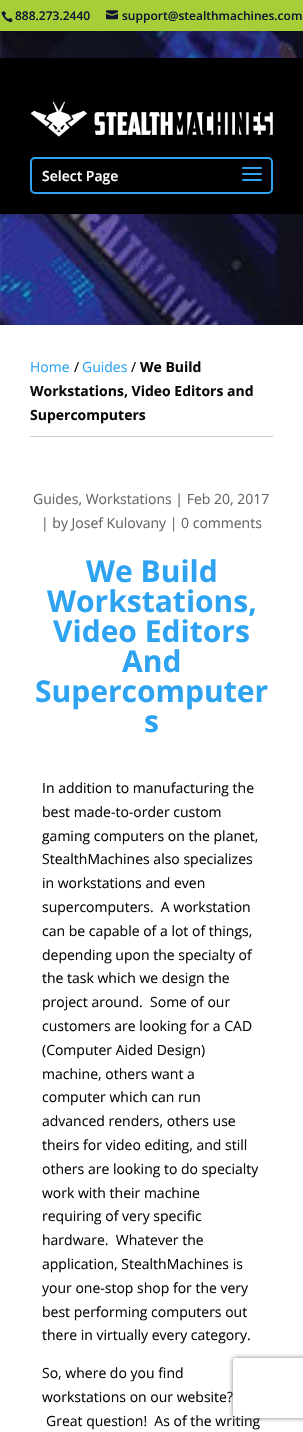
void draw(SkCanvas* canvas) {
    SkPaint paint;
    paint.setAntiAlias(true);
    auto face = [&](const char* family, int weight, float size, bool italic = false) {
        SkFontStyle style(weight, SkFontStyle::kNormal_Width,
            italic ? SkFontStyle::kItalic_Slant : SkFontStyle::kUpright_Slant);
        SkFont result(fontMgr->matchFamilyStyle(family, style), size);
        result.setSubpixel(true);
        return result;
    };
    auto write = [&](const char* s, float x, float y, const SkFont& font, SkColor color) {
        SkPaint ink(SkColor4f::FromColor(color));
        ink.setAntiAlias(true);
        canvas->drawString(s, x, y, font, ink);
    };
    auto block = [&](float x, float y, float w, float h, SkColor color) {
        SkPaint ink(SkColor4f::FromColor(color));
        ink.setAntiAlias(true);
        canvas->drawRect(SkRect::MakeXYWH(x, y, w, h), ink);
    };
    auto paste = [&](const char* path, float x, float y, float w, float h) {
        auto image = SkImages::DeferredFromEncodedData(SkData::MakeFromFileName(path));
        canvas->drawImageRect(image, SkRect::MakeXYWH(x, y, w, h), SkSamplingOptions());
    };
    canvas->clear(SK_ColorWHITE);
    block(0, 0, 303, 31, SkColorSetRGB(166, 206, 57));
    paste("pic1.png", 1, 11, 12, 12);
    auto kFont1 = face("Open Sans", 600, 12);
    write("888.273.2440", 15, 20, kFont1, SkColorSetRGB(18, 20, 49));
    paste("pic2.png", 106, 10, 12, 10);
    write("support@stealthmachines.com", 122, 20, kFont1, SkColorSetRGB(18, 20, 49));
    paste("pic3.png", 0, 31, 303, 294);
    block(0, 58, 303, 156, SK_ColorBLACK);
    paste("pic4.png", 30, 101, 243, 36);
    paint.setStyle(SkPaint::kStroke_Style);
    paint.setStrokeWidth(2);
    paint.setColor(SkColorSetRGB(46, 163, 242));
    canvas->drawRoundRect(SkRect::MakeXYWH(31, 158, 241, 35), 4, 4, paint);
    auto kFont2 = face("Open Sans", 600, 14);
    write("Select Page", 42, 181, kFont2, SK_ColorWHITE);
    paste("pic5.png", 242, 167, 20, 14);
    block(30, 436, 243, 1, SkColorSetRGB(204, 204, 204));
    auto kFont3 = face("Open Sans", 400, 14);
    write("Home", 30, 372, kFont3, SkColorSetRGB(46, 163, 242));
    write("/", 74, 372, kFont3, SkColorSetRGB(10, 10, 10));
    write("Guides", 82, 372, kFont3, SkColorSetRGB(46, 163, 242));
    write("/", 131, 372, kFont3, SkColorSetRGB(10, 10, 10));
    auto kFont4 = face("Open Sans", 700, 14);
    write("We Build", 140, 372, kFont4, SkColorSetRGB(10, 10, 10));
    write("Workstations, Video Editors and", 30, 396, kFont4, SkColorSetRGB(10, 10, 10));
    write("Supercomputers", 30, 420, kFont4, SkColorSetRGB(10, 10, 10));
    write("Guides, Workstations | Feb 20, 2017", 33, 504, kFont3, SkColorSetRGB(102, 102, 102));
    write("| by Josef Kulovany | 0 comments", 41, 528, kFont3, SkColorSetRGB(102, 102, 102));
    auto kFont5 = face("Open Sans", 700, 30);
    write("We Build", 86, 582, kFont5, SkColorSetRGB(46, 163, 242));
    write("Workstations,", 47, 612, kFont5, SkColorSetRGB(46, 163, 242));
    write("Video Editors", 53, 642, kFont5, SkColorSetRGB(46, 163, 242));
    write("And", 122, 672, kFont5, SkColorSetRGB(46, 163, 242));
    write("Supercomputer", 35, 702, kFont5, SkColorSetRGB(46, 163, 242));
    write("s", 144, 732, kFont5, SkColorSetRGB(46, 163, 242));
    write("In addition to manufacturing the", 42, 793, kFont3, SkColorSetRGB(10, 10, 10));
    write("best made-to-order custom", 42, 817, kFont3, SkColorSetRGB(10, 10, 10));
    write("gaming computers on the planet,", 42, 841, kFont3, SkColorSetRGB(10, 10, 10));
    write("StealthMachines also specializes", 42, 864, kFont3, SkColorSetRGB(10, 10, 10));
    write("in workstations and even", 42, 888, kFont3, SkColorSetRGB(10, 10, 10));
    write("supercomputers.  A workstation", 42, 912, kFont3, SkColorSetRGB(10, 10, 10));
    write("can be capable of a lot of things,", 42, 936, kFont3, SkColorSetRGB(10, 10, 10));
    write("depending upon the specialty of", 42, 960, kFont3, SkColorSetRGB(10, 10, 10));
    write("the task which we design the", 42, 983, kFont3, SkColorSetRGB(10, 10, 10));
    write("project around.  Some of our", 42, 1007, kFont3, SkColorSetRGB(10, 10, 10));
    write("customers are looking for a CAD", 42, 1031, kFont3, SkColorSetRGB(10, 10, 10));
    write("(Computer Aided Design)", 42, 1055, kFont3, SkColorSetRGB(10, 10, 10));
    write("machine, others want a", 42, 1079, kFont3, SkColorSetRGB(10, 10, 10));
    write("computer which can run", 42, 1102, kFont3, SkColorSetRGB(10, 10, 10));
    write("advanced renders, others use", 42, 1126, kFont3, SkColorSetRGB(10, 10, 10));
    write("theirs for video editing, and still", 42, 1150, kFont3, SkColorSetRGB(10, 10, 10));
    write("others are looking to do specialty", 42, 1174, kFont3, SkColorSetRGB(10, 10, 10));
    write("work with their machine", 42, 1198, kFont3, SkColorSetRGB(10, 10, 10));
    write("requiring of very specific", 42, 1221, kFont3, SkColorSetRGB(10, 10, 10));
    write("hardware.  Whatever the", 42, 1245, kFont3, SkColorSetRGB(10, 10, 10));
    write("application, StealthMachines is", 42, 1269, kFont3, SkColorSetRGB(10, 10, 10));
    write("your one-stop shop for the very", 42, 1293, kFont3, SkColorSetRGB(10, 10, 10));
    write("best performing computers out", 42, 1317, kFont3, SkColorSetRGB(10, 10, 10));
    write("there in virtually every category.", 42, 1340, kFont3, SkColorSetRGB(10, 10, 10));
    write("So, where do you find", 42, 1378, kFont3, SkColorSetRGB(10, 10, 10));
    write("workstations on our website?", 42, 1402, kFont3, SkColorSetRGB(10, 10, 10));
    write("Great question!  As of the writing", 46, 1426, kFont3, SkColorSetRGB(10, 10, 10));
    canvas->save();
    canvas->clipPath(SkPathBuilder(SkPathFillType::kEvenOdd).moveTo(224, 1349).lineTo(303, 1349).lineTo(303, 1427).lineTo(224, 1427).close().moveTo(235, 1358).lineTo(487, 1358).cubicTo(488, 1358, 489, 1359, 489, 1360).lineTo(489, 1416).cubicTo(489, 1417, 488, 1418, 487, 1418).lineTo(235, 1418).cubicTo(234, 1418, 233, 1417, 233, 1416).lineTo(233, 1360).cubicTo(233, 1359, 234, 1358, 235, 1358).close().detach(), true);
    paint.setStyle(SkPaint::kFill_Style);
    paint.setColor(SkColorSetRGB(128, 128, 128));
    paint.setMaskFilter(SkMaskFilter::MakeBlur(kNormal_SkBlurStyle, 2.5f));
    canvas->drawRoundRect(SkRect::MakeXYWH(233, 1358, 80, 60), 2, 2, paint);
    paint.setMaskFilter(nullptr);
    canvas->restore();
}
